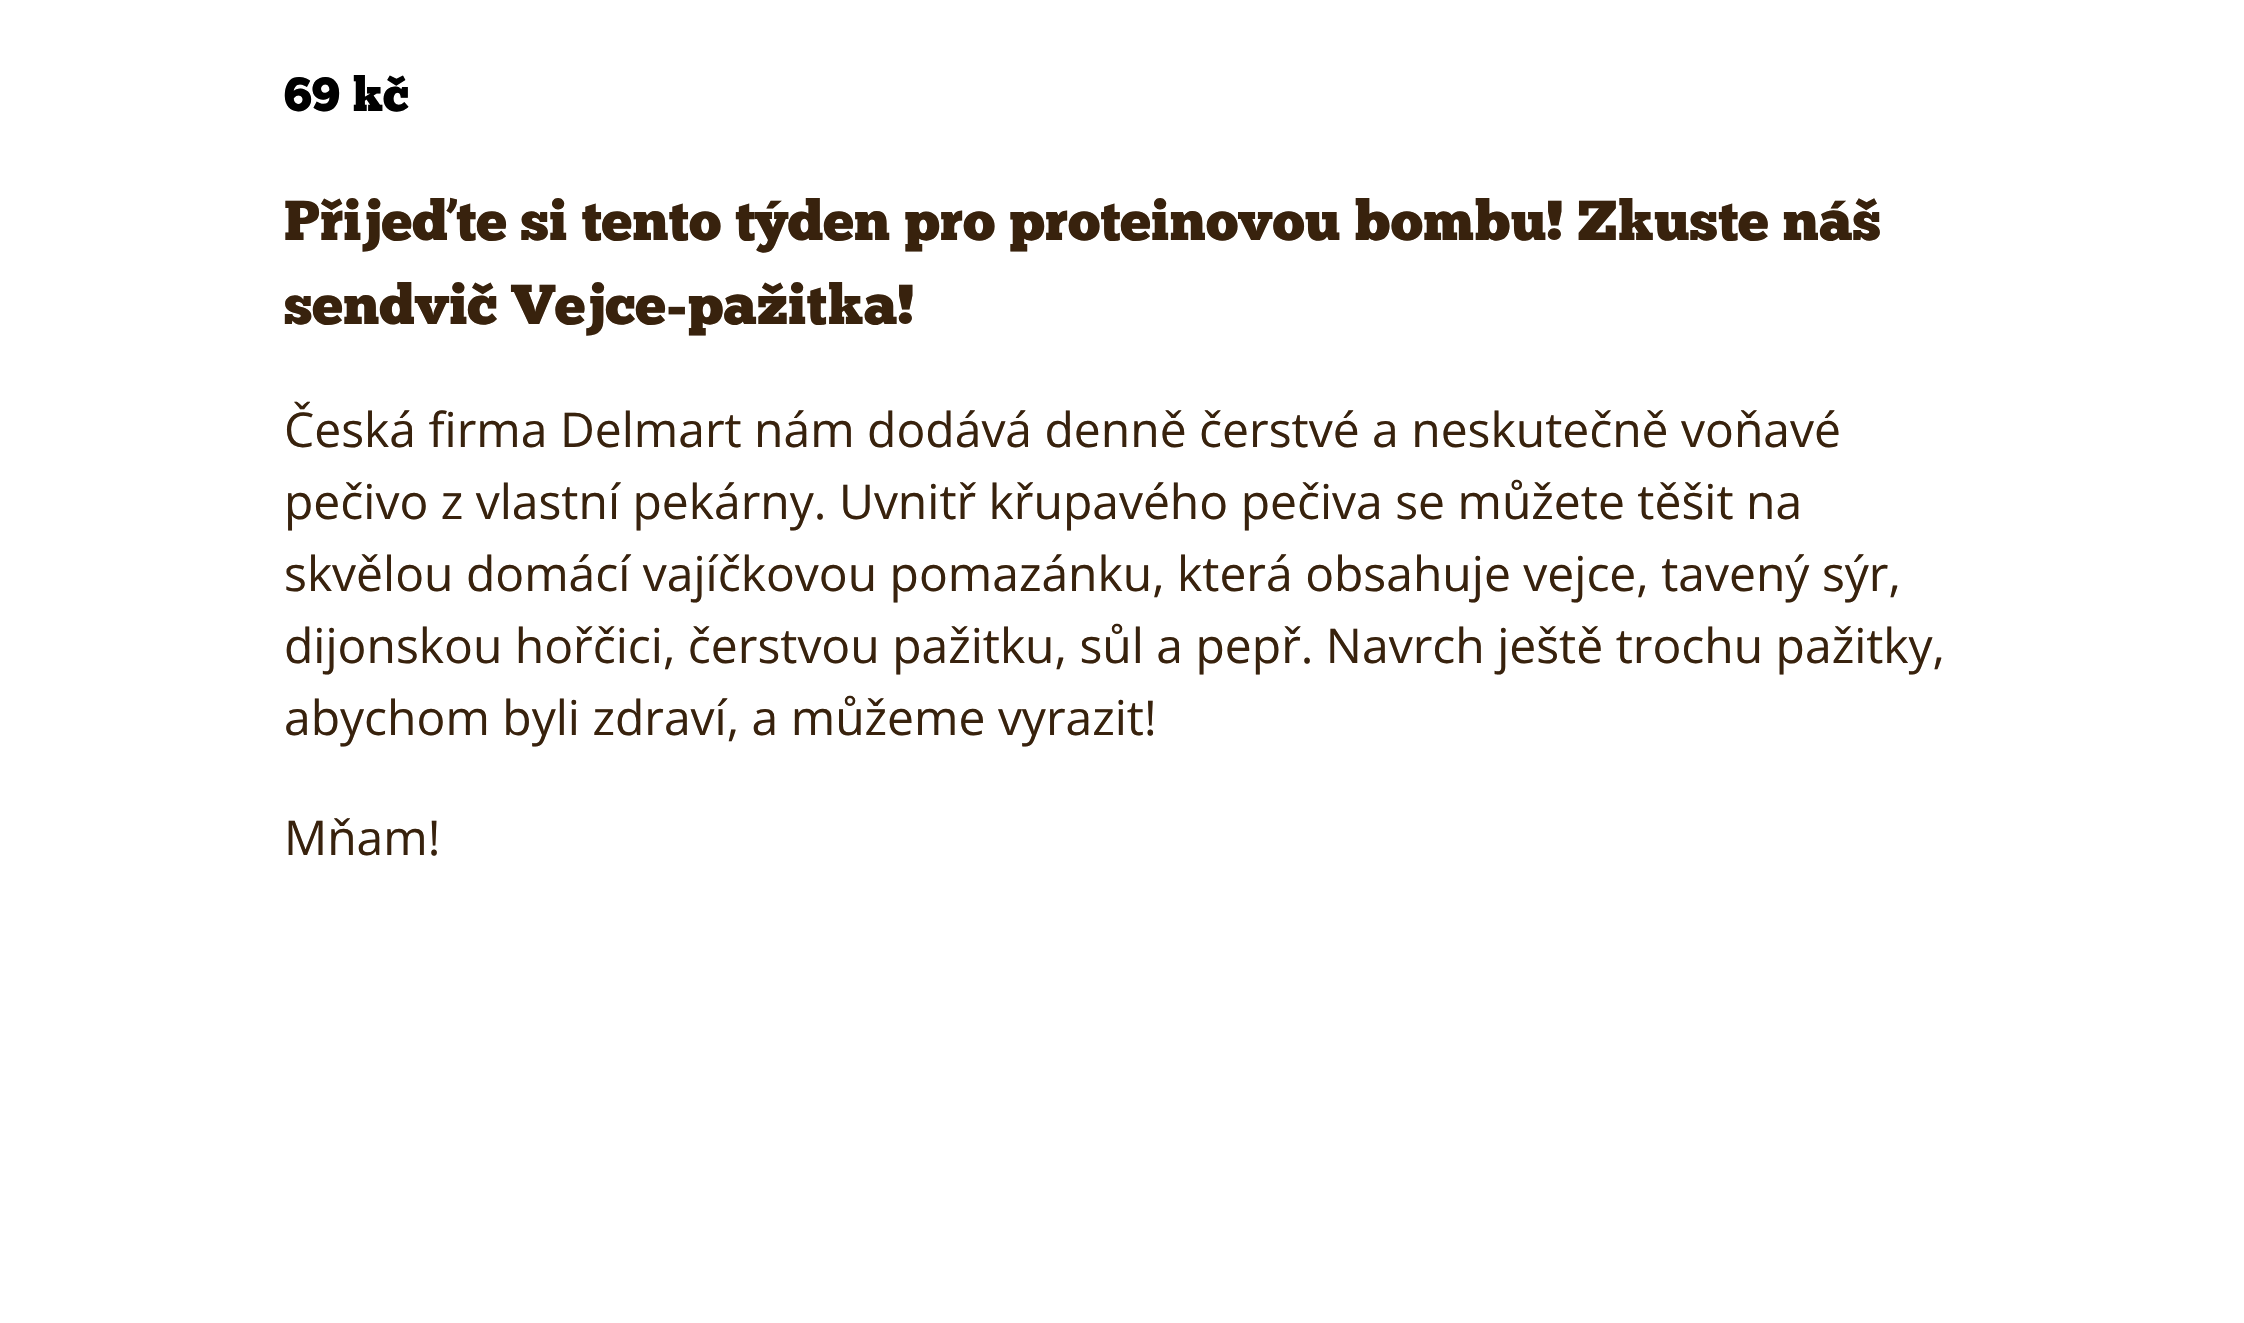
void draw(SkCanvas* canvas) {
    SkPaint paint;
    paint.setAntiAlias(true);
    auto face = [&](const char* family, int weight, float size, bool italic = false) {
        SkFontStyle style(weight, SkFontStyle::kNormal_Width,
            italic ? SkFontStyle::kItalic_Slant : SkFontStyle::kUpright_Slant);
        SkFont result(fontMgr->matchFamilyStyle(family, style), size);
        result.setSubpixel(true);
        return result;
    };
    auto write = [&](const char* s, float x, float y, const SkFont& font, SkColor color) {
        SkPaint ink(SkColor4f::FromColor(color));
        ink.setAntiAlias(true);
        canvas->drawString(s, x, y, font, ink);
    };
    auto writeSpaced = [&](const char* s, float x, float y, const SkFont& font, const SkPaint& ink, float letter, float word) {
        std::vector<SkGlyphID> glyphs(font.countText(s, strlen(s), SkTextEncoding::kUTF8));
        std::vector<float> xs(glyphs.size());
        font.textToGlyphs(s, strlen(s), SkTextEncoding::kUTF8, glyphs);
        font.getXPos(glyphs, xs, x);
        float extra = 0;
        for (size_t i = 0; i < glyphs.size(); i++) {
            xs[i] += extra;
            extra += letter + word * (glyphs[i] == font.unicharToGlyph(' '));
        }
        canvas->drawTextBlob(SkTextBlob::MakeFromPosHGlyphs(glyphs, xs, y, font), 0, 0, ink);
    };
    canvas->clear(SK_ColorWHITE);
    auto kFont1 = face("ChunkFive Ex", 400, 48);
    write("69 kč", 284, 111, kFont1, SK_ColorBLACK);
    auto kFont2 = face("ChunkFive Ex", 400, 56.15f);
    paint.setColor(SkColorSetRGB(56, 34, 13));
    writeSpaced("Přijeďte si tento týden pro proteinovou bombu! Zkuste náš", 284, 240, kFont2, paint, 0, -0.25f);
    write("sendvič Vejce-pažitka!", 284, 324, kFont2, SkColorSetRGB(56, 34, 13));
    auto kFont3 = face("Open Sans", 400, 48);
    write("Česká firma Delmart nám dodává denně čerstvé a neskutečně voňavé", 284, 447, kFont3, SkColorSetRGB(56, 34, 13));
    write("pečivo z vlastní pekárny. Uvnitř křupavého pečiva se můžete těšit na", 284, 519, kFont3, SkColorSetRGB(56, 34, 13));
    write("skvělou domácí vajíčkovou pomazánku, která obsahuje vejce, tavený sýr,", 284, 591, kFont3, SkColorSetRGB(56, 34, 13));
    write("dijonskou hořčici, čerstvou pažitku, sůl a pepř. Navrch ještě trochu pažitky,", 284, 663, kFont3, SkColorSetRGB(56, 34, 13));
    write("abychom byli zdraví, a můžeme vyrazit!", 284, 735, kFont3, SkColorSetRGB(56, 34, 13));
    write("Mňam!", 284, 855, kFont3, SkColorSetRGB(56, 34, 13));
}
